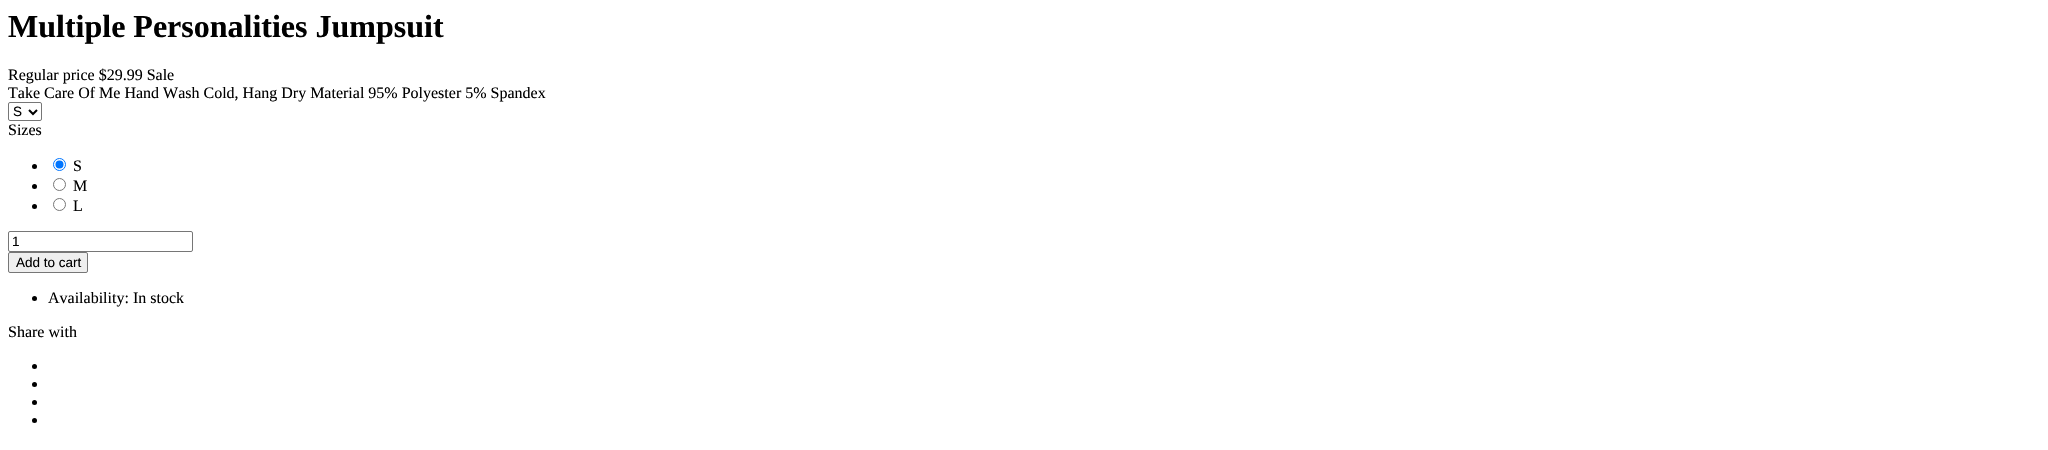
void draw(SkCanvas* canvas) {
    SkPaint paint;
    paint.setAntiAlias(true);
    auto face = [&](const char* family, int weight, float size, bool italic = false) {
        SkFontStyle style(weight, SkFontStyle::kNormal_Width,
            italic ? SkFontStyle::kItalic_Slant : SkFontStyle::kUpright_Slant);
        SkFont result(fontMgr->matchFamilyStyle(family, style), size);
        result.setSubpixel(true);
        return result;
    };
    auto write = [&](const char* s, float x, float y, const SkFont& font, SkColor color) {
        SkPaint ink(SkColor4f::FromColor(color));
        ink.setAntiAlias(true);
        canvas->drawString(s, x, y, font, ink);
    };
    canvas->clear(SK_ColorWHITE);
    auto kFont1 = face("Liberation Serif", 700, 32);
    write("Multiple Personalities Jumpsuit", 8, 37, kFont1, SK_ColorBLACK);
    auto kFont2 = face("Liberation Serif", 400, 16);
    write("Regular price $29.99 Sale", 8, 80, kFont2, SK_ColorBLACK);
    write("Take Care Of Me Hand Wash Cold, Hang Dry Material 95% Polyester 5% Spandex", 8, 98, kFont2, SK_ColorBLACK);
    paint.setStyle(SkPaint::kStroke_Style);
    paint.setStrokeWidth(1);
    paint.setColor(SkColorSetRGB(118, 118, 118));
    canvas->drawRoundRect(SkRect::MakeXYWH(8.5f, 102.5f, 33, 18), 1.5f, 1.5f, paint);
    paint.setStrokeWidth(2);
    paint.setColor(SK_ColorBLACK);
    canvas->drawPath(SkPathBuilder().moveTo(29, 110).lineTo(33, 114).lineTo(37, 110).detach(), paint);
    auto kFont3 = face("Liberation Sans", 400, 13.5f);
    write("S", 13, 116, kFont3, SK_ColorBLACK);
    write("Sizes", 8, 135, kFont2, SK_ColorBLACK);
    paint.setStyle(SkPaint::kFill_Style);
    canvas->drawCircle(34.5f, 166.5f, 2.5f, paint);
    paint.setStyle(SkPaint::kStroke_Style);
    paint.setStrokeWidth(1);
    paint.setColor(SkColorSetRGB(0, 117, 255));
    canvas->drawCircle(59.5f, 164.5f, 6, paint);
    paint.setStyle(SkPaint::kFill_Style);
    canvas->drawCircle(59.5f, 164.5f, 4, paint);
    write("S", 73, 171, kFont2, SK_ColorBLACK);
    paint.setColor(SK_ColorBLACK);
    canvas->drawCircle(34.5f, 186.5f, 2.5f, paint);
    paint.setStyle(SkPaint::kStroke_Style);
    paint.setColor(SkColorSetRGB(118, 118, 118));
    canvas->drawCircle(59.5f, 184.5f, 6, paint);
    write("M", 73, 191, kFont2, SK_ColorBLACK);
    paint.setStyle(SkPaint::kFill_Style);
    paint.setColor(SK_ColorBLACK);
    canvas->drawCircle(34.5f, 206.5f, 2.5f, paint);
    paint.setStyle(SkPaint::kStroke_Style);
    paint.setColor(SkColorSetRGB(118, 118, 118));
    canvas->drawCircle(59.5f, 204.5f, 6, paint);
    write("L", 73, 211, kFont2, SK_ColorBLACK);
    canvas->drawRoundRect(SkRect::MakeXYWH(8.5f, 231.5f, 184, 20), 1.5f, 1.5f, paint);
    write("1", 12, 246, kFont3, SK_ColorBLACK);
    paint.setStyle(SkPaint::kFill_Style);
    paint.setColor(SkColorSetRGB(239, 239, 239));
    canvas->drawRoundRect(SkRect::MakeXYWH(8.5f, 252.5f, 79, 20), 1.5f, 1.5f, paint);
    paint.setStyle(SkPaint::kStroke_Style);
    paint.setColor(SkColorSetRGB(118, 118, 118));
    canvas->drawRoundRect(SkRect::MakeXYWH(8.5f, 252.5f, 79, 20), 1.5f, 1.5f, paint);
    write("Add to cart", 16, 267, kFont3, SK_ColorBLACK);
    paint.setStyle(SkPaint::kFill_Style);
    paint.setColor(SK_ColorBLACK);
    canvas->drawCircle(34.5f, 298.5f, 2.5f, paint);
    write("Availability: In stock", 48, 303, kFont2, SK_ColorBLACK);
    write("Share with", 8, 337, kFont2, SK_ColorBLACK);
    canvas->drawCircle(34.5f, 366.5f, 2.5f, paint);
    canvas->drawCircle(34.5f, 384.5f, 2.5f, paint);
    canvas->drawCircle(34.5f, 402.5f, 2.5f, paint);
    canvas->drawCircle(34.5f, 420.5f, 2.5f, paint);
}
